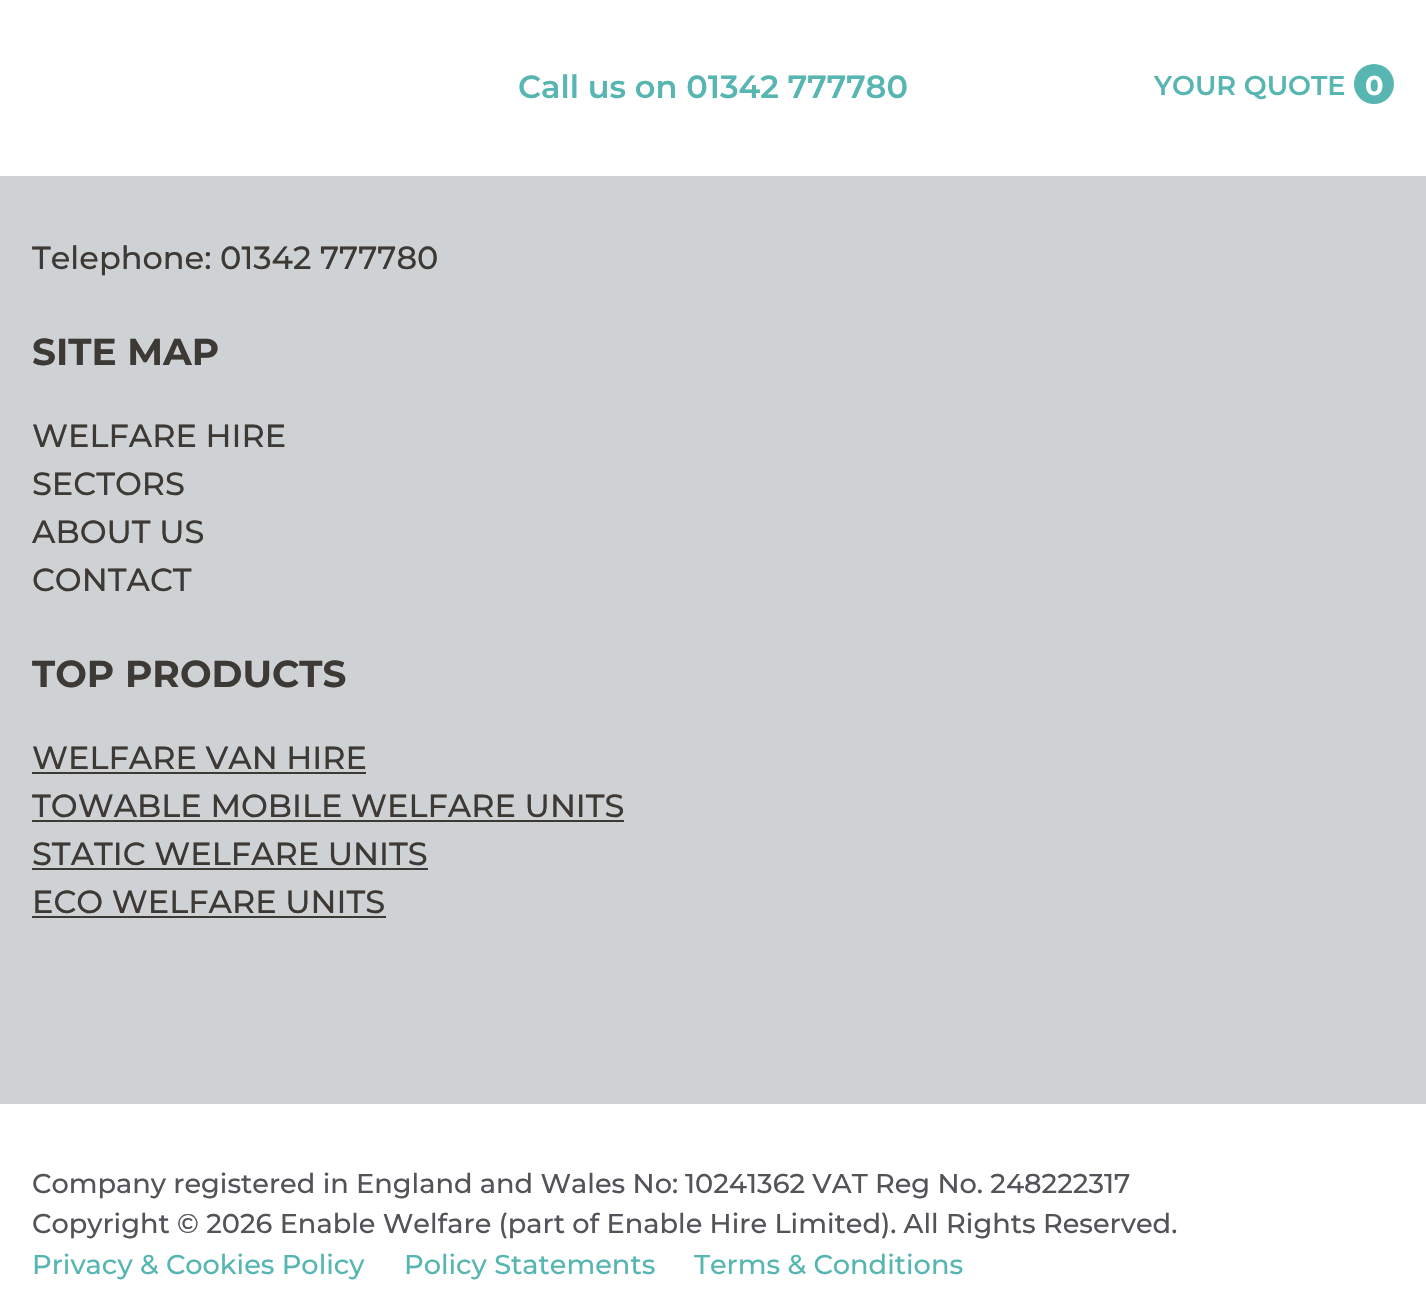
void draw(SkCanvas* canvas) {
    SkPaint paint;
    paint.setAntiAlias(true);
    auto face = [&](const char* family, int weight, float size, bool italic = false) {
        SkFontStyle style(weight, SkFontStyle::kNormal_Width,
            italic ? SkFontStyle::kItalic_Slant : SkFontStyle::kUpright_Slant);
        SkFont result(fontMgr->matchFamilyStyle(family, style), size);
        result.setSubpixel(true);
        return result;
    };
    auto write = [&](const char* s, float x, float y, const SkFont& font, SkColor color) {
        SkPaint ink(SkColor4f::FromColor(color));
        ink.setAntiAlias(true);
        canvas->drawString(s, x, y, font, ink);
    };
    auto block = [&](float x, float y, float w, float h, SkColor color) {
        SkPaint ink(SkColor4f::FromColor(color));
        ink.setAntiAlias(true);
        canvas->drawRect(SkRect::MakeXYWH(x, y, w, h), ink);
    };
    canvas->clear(SK_ColorWHITE);
    block(0, 176, 1426, 2, SkColorSetRGB(207, 210, 211));
    auto kFont1 = face("Montserrat", 600, 32);
    write("Call us on 01342 777780", 518, 98, kFont1, SkColorSetRGB(87, 182, 178));
    paint.setColor(SkColorSetRGB(87, 182, 178));
    canvas->drawCircle(1374, 84, 20, paint);
    auto kFont2 = face("Montserrat", 600, 27.2f);
    write("YOUR QUOTE", 1154, 95, kFont2, SkColorSetRGB(87, 182, 178));
    auto kFont3 = face("Montserrat", 700, 27.2f);
    write("0", 1365, 95, kFont3, SK_ColorWHITE);
    block(0, 178, 1426, 926, SkColorSetRGB(206, 210, 213));
    auto kFont4 = face("Montserrat", 500, 32);
    write("Telephone: 01342 777780", 32, 269, kFont4, SkColorSetRGB(61, 57, 53));
    auto kFont5 = face("Montserrat", 700, 37.5f);
    write("SITE MAP", 32, 365, kFont5, SkColorSetRGB(61, 57, 53));
    write("WELFARE HIRE", 32, 447, kFont4, SkColorSetRGB(61, 57, 53));
    write("SECTORS", 32, 495, kFont4, SkColorSetRGB(61, 57, 53));
    write("ABOUT US", 32, 543, kFont4, SkColorSetRGB(61, 57, 53));
    write("CONTACT", 32, 591, kFont4, SkColorSetRGB(61, 57, 53));
    write("TOP PRODUCTS", 32, 687, kFont5, SkColorSetRGB(61, 57, 53));
    write("WELFARE VAN HIRE", 32, 769, kFont4, SkColorSetRGB(61, 57, 53));
    block(32, 772, 334, 2, SkColorSetRGB(61, 57, 53));
    write("TOWABLE MOBILE WELFARE UNITS", 32, 817, kFont4, SkColorSetRGB(61, 57, 53));
    block(32, 820, 592, 2, SkColorSetRGB(61, 57, 53));
    write("STATIC WELFARE UNITS", 32, 865, kFont4, SkColorSetRGB(61, 57, 53));
    block(32, 868, 396, 2, SkColorSetRGB(61, 57, 53));
    write("ECO WELFARE UNITS", 32, 913, kFont4, SkColorSetRGB(61, 57, 53));
    block(32, 916, 354, 2, SkColorSetRGB(61, 57, 53));
    auto kFont6 = face("Montserrat", 500, 27.2f);
    write("Company registered in England and Wales No:", 32, 1193, kFont6, SkColorSetRGB(83, 84, 89));
    write("10241362 VAT Reg No. 248222317", 685, 1193, kFont6, SkColorSetRGB(83, 84, 89));
    write("Copyright © 2026 Enable Welfare (part of Enable Hire Limited). All Rights Reserved.", 32, 1233, kFont6, SkColorSetRGB(83, 84, 89));
    write("Privacy & Cookies Policy", 32, 1274, kFont6, SkColorSetRGB(87, 182, 178));
    write("Policy Statements", 404, 1274, kFont6, SkColorSetRGB(87, 182, 178));
    write("Terms & Conditions", 694, 1274, kFont6, SkColorSetRGB(87, 182, 178));
}
